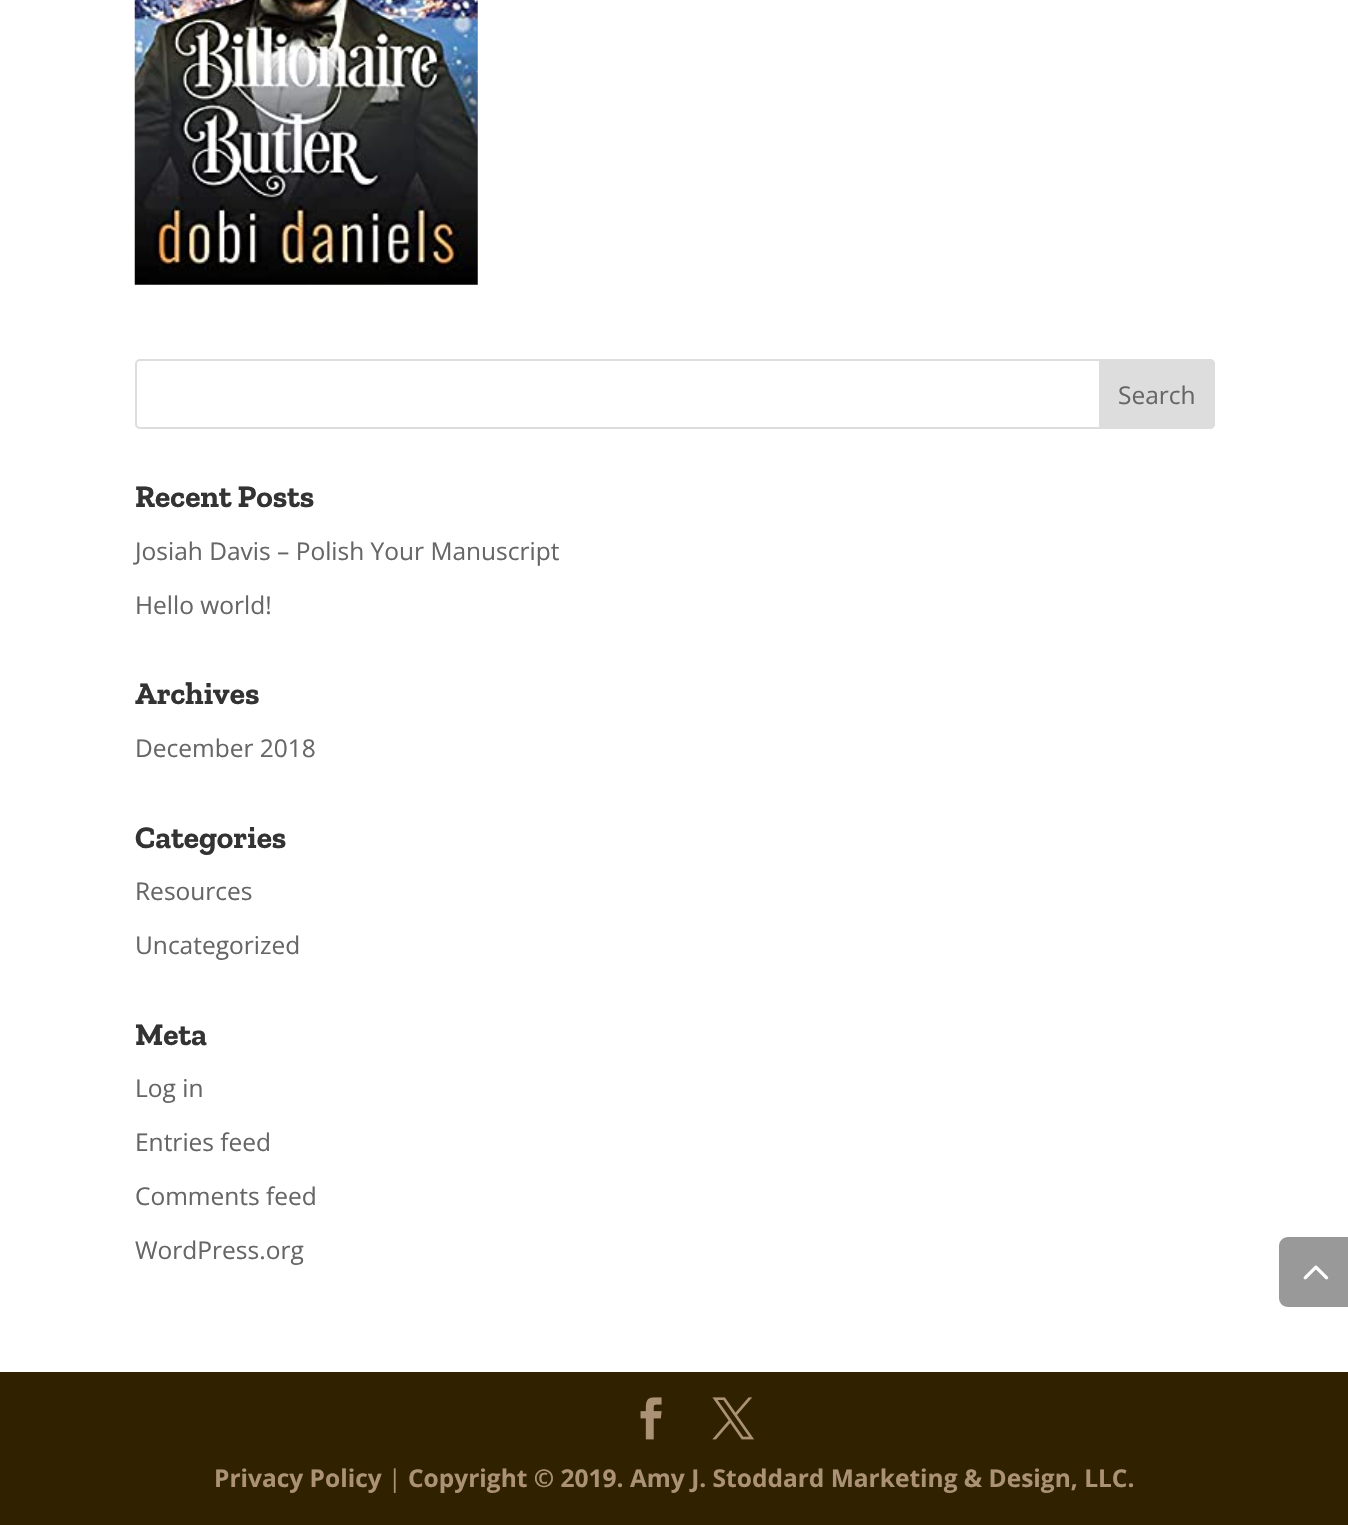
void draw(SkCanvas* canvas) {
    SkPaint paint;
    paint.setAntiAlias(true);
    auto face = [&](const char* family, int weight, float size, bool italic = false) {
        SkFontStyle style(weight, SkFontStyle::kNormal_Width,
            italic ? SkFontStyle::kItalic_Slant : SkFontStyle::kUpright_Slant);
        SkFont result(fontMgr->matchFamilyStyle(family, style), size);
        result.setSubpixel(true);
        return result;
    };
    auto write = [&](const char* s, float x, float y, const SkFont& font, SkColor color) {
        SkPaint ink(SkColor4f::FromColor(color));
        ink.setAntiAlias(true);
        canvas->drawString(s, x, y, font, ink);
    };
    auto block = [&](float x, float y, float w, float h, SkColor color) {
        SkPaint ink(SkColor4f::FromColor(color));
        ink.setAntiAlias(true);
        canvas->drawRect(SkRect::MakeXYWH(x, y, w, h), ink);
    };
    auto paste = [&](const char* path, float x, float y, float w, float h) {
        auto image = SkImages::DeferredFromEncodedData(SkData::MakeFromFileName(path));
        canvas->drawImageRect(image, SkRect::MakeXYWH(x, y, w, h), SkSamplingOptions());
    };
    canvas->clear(SK_ColorWHITE);
    paste("pic1.png", 134, 0, 344, 285);
    paint.setStyle(SkPaint::kStroke_Style);
    paint.setStrokeWidth(2);
    paint.setColor(SkColorSetRGB(221, 221, 221));
    canvas->drawRoundRect(SkRect::MakeXYWH(136, 360, 1078, 68), 4, 4, paint);
    paint.setStyle(SkPaint::kFill_Style);
    canvas->drawPath(SkPathBuilder().moveTo(1100, 360).lineTo(1210, 360).cubicTo(1212, 360, 1214, 362, 1214, 364).lineTo(1214, 424).cubicTo(1214, 426, 1212, 428, 1210, 428).lineTo(1100, 428).close().detach(), paint);
    paint.setStyle(SkPaint::kStroke_Style);
    canvas->drawPath(SkPathBuilder().moveTo(1100, 360).lineTo(1210, 360).cubicTo(1212, 360, 1214, 362, 1214, 364).lineTo(1214, 424).cubicTo(1214, 426, 1212, 428, 1210, 428).lineTo(1100, 428).close().detach(), paint);
    auto kFont1 = face("Open Sans", 400, 24.5f);
    write("Search", 1118, 404, kFont1, SkColorSetRGB(102, 102, 102));
    auto kFont2 = face("Zilla Slab", 700, 31.5f);
    write("Recent Posts", 135, 507, kFont2, SkColorSetRGB(51, 51, 51));
    write("Josiah Davis – Polish Your Manuscript", 135, 560, kFont1, SkColorSetRGB(102, 102, 102));
    write("Hello world!", 135, 614, kFont1, SkColorSetRGB(102, 102, 102));
    write("Archives", 135, 704, kFont2, SkColorSetRGB(51, 51, 51));
    write("December 2018", 135, 757, kFont1, SkColorSetRGB(102, 102, 102));
    write("Categories", 135, 848, kFont2, SkColorSetRGB(51, 51, 51));
    write("Resources", 135, 900, kFont1, SkColorSetRGB(102, 102, 102));
    write("Uncategorized", 135, 954, kFont1, SkColorSetRGB(102, 102, 102));
    write("Meta", 135, 1045, kFont2, SkColorSetRGB(51, 51, 51));
    write("Log in", 135, 1097, kFont1, SkColorSetRGB(102, 102, 102));
    write("Entries feed", 135, 1151, kFont1, SkColorSetRGB(102, 102, 102));
    write("Comments feed", 135, 1205, kFont1, SkColorSetRGB(102, 102, 102));
    write("WordPress.org", 135, 1259, kFont1, SkColorSetRGB(102, 102, 102));
    paint.setStyle(SkPaint::kFill_Style);
    paint.setColor(SkColorSetRGB(153, 153, 153));
    canvas->drawPath(SkPathBuilder().moveTo(1288, 1237).lineTo(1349, 1237).lineTo(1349, 1307).lineTo(1288, 1307).cubicTo(1283, 1307, 1279, 1303, 1279, 1298).lineTo(1279, 1246).cubicTo(1279, 1241, 1283, 1237, 1288, 1237).close().detach(), paint);
    paste("pic2.png", 1303, 1265, 26, 15);
    block(0, 1372, 1348, 153, SkColorSetRGB(48, 33, 1));
    paste("pic3.png", 640, 1397, 22, 43);
    paste("pic4.png", 712, 1397, 42, 43);
    auto kFont3 = face("Open Sans", 700, 24.5f);
    write("Privacy Policy", 214, 1487, kFont3, SkColorSetRGB(171, 145, 118));
    write("|", 388, 1487, kFont1, SkColorSetRGB(171, 145, 118));
    write("Copyright © 2019. Amy J. Stoddard Marketing & Design, LLC.", 408, 1487, kFont3, SkColorSetRGB(171, 145, 118));
}
